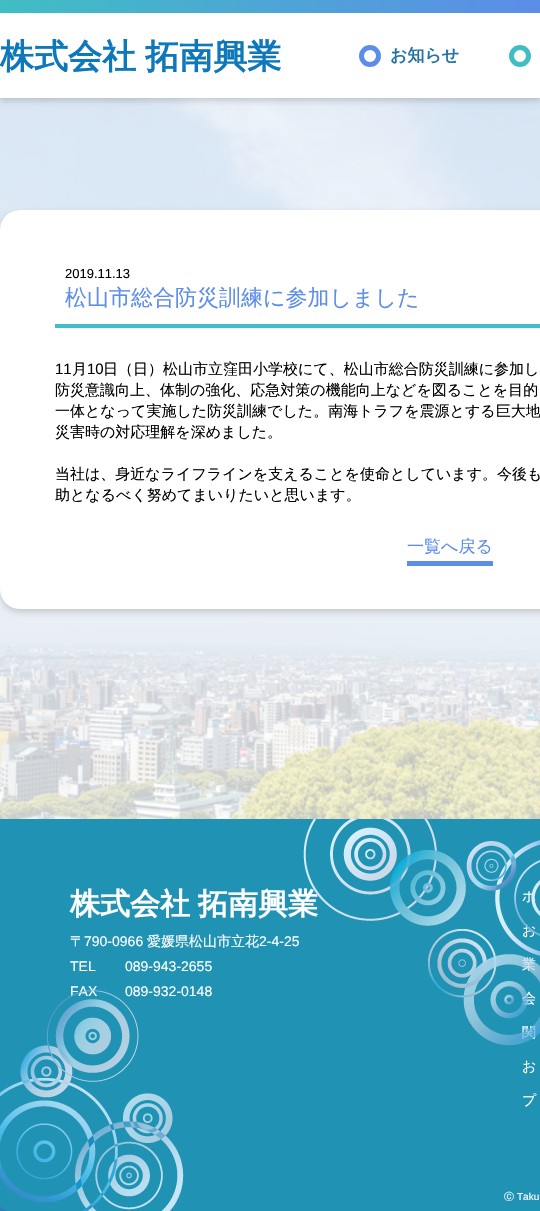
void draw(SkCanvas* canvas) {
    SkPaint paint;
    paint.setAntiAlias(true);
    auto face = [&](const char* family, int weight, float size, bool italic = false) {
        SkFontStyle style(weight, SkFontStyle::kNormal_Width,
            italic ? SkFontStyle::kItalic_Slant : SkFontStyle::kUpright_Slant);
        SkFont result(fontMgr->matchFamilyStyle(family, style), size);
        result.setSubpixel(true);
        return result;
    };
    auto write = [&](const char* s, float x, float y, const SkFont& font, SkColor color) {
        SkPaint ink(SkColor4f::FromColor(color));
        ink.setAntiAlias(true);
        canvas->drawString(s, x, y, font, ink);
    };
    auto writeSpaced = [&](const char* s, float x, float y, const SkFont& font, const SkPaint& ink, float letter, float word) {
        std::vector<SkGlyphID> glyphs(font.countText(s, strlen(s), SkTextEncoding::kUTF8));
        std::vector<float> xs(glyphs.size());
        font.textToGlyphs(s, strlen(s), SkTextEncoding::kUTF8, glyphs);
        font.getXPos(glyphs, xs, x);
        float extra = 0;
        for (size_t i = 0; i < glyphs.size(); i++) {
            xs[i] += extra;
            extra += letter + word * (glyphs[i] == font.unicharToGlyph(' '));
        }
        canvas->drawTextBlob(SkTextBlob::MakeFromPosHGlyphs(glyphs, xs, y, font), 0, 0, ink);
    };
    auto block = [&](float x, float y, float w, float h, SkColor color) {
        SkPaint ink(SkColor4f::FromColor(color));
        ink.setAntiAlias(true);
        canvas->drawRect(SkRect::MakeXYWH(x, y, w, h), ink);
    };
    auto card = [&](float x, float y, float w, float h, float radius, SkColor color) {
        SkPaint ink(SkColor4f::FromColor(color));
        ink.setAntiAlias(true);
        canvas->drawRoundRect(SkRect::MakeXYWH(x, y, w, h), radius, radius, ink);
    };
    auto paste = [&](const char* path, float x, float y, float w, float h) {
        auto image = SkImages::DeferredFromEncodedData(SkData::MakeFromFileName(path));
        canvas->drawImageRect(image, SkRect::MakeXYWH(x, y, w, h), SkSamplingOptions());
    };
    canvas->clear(SK_ColorWHITE);
    paste("pic4.png", 0, 98, 540, 721);
    block(0, 98, 540, 721, SkColorSetARGB(191, 255, 255, 255));
    paint.setColor(SkColorSetARGB(41, 0, 0, 0));
    paint.setMaskFilter(SkMaskFilter::MakeBlur(kNormal_SkBlurStyle, 3));
    canvas->drawRect(SkRect::MakeXYWH(0, 3, 540, 98), paint);
    paint.setMaskFilter(nullptr);
    block(0, 13, 540, 85, SK_ColorWHITE);
    paste("pic1.png", 0, 0, 540, 13);
    auto kFont1 = face("WenQuanYi Zen Hei", 700, 34);
    paint.setColor(SkColorSetRGB(13, 120, 186));
    writeSpaced("株式会社 拓南興業", 0, 68, kFont1, paint, 0, -1);
    paint.setStyle(SkPaint::kStroke_Style);
    paint.setStrokeWidth(5);
    paint.setColor(SkColorSetRGB(92, 141, 232));
    canvas->drawCircle(370, 56, 8.5f, paint);
    auto kFont2 = face("WenQuanYi Zen Hei", 700, 17);
    write("お知らせ", 390, 61, kFont2, SkColorSetRGB(37, 114, 170));
    paint.setColor(SkColorSetRGB(63, 190, 195));
    canvas->drawCircle(520, 56, 8.5f, paint);
    paint.setStyle(SkPaint::kFill_Style);
    paint.setColor(SkColorSetARGB(41, 0, 0, 0));
    paint.setMaskFilter(SkMaskFilter::MakeBlur(kNormal_SkBlurStyle, 3));
    canvas->drawRoundRect(SkRect::MakeXYWH(0, 213, 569, 399), 20, 20, paint);
    paint.setMaskFilter(nullptr);
    card(0, 210, 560, 399, 20, SK_ColorWHITE);
    auto kFont3 = face("Liberation Sans", 400, 13);
    write("2019.11.13", 65, 278, kFont3, SK_ColorBLACK);
    block(55, 324, 485, 4, SkColorSetRGB(63, 190, 195));
    auto kFont4 = face("WenQuanYi Zen Hei", 500, 22);
    write("松山市総合防災訓練に参加しました", 65, 305, kFont4, SkColorSetRGB(92, 141, 232));
    auto kFont5 = face("Liberation Sans", 400, 15);
    write("11", 55, 374, kFont5, SK_ColorBLACK);
    auto kFont6 = face("WenQuanYi Zen Hei", 500, 15);
    write("月", 72, 374, kFont6, SK_ColorBLACK);
    write("10", 87, 374, kFont5, SK_ColorBLACK);
    write("日（日）松山市立窪田小学校にて、松山市総合防災訓練に参加し", 103, 374, kFont6, SK_ColorBLACK);
    write("防災意識向上、体制の強化、応急対策の機能向上などを図ることを目的", 55, 395, kFont6, SK_ColorBLACK);
    write("一体となって実施した防災訓練でした。南海トラフを震源とする巨大地", 55, 416, kFont6, SK_ColorBLACK);
    write("災害時の対応理解を深めました。", 55, 437, kFont6, SK_ColorBLACK);
    write("当社は、身近なライフラインを支えることを使命としています。今後も", 55, 479, kFont6, SK_ColorBLACK);
    write("助となるべく努めてまいりたいと思います。", 55, 500, kFont6, SK_ColorBLACK);
    auto kFont7 = face("WenQuanYi Zen Hei", 500, 17);
    write("一覧へ戻る", 407, 552, kFont7, SkColorSetRGB(92, 141, 232));
    block(407, 561, 86, 5, SkColorSetRGB(92, 141, 232));
    block(0, 819, 540, 392, SkColorSetRGB(32, 146, 180));
    auto kFont8 = face("WenQuanYi Zen Hei", 700, 30);
    paint.setColor(SK_ColorWHITE);
    writeSpaced("株式会社 拓南興業", 70, 914, kFont8, paint, 0, -1);
    auto kFont9 = face("WenQuanYi Zen Hei", 500, 14);
    write("ホ", 522, 901, kFont9, SK_ColorWHITE);
    write("お", 522, 935, kFont9, SK_ColorWHITE);
    write("業", 522, 969, kFont9, SK_ColorWHITE);
    write("会", 522, 1003, kFont9, SK_ColorWHITE);
    write("関", 522, 1037, kFont9, SK_ColorWHITE);
    paste("pic2.png", 303, 819, 237, 227);
    write("〒", 70, 946, kFont9, SK_ColorWHITE);
    auto kFont10 = face("Liberation Sans", 400, 14);
    write("790-0966", 84, 946, kFont10, SK_ColorWHITE);
    write("愛媛県松山市立花", 147, 946, kFont9, SK_ColorWHITE);
    write("2-4-25", 259, 946, kFont10, SK_ColorWHITE);
    write("TEL", 70, 971, kFont10, SK_ColorWHITE);
    write("089-943-2655", 125, 971, kFont10, SK_ColorWHITE);
    write("FAX", 70, 996, kFont10, SK_ColorWHITE);
    write("089-932-0148", 125, 996, kFont10, SK_ColorWHITE);
    write("お", 522, 1071, kFont9, SK_ColorWHITE);
    write("プ", 522, 1105, kFont9, SK_ColorWHITE);
    paste("pic3.png", 0, 990, 184, 221);
    auto kFont11 = face("WenQuanYi Zen Hei", 500, 10);
    write("Ⓒ", 504, 1200, kFont11, SK_ColorWHITE);
    auto kFont12 = face("Liberation Sans", 400, 10);
    write("Taku", 517, 1200, kFont12, SK_ColorWHITE);
}
